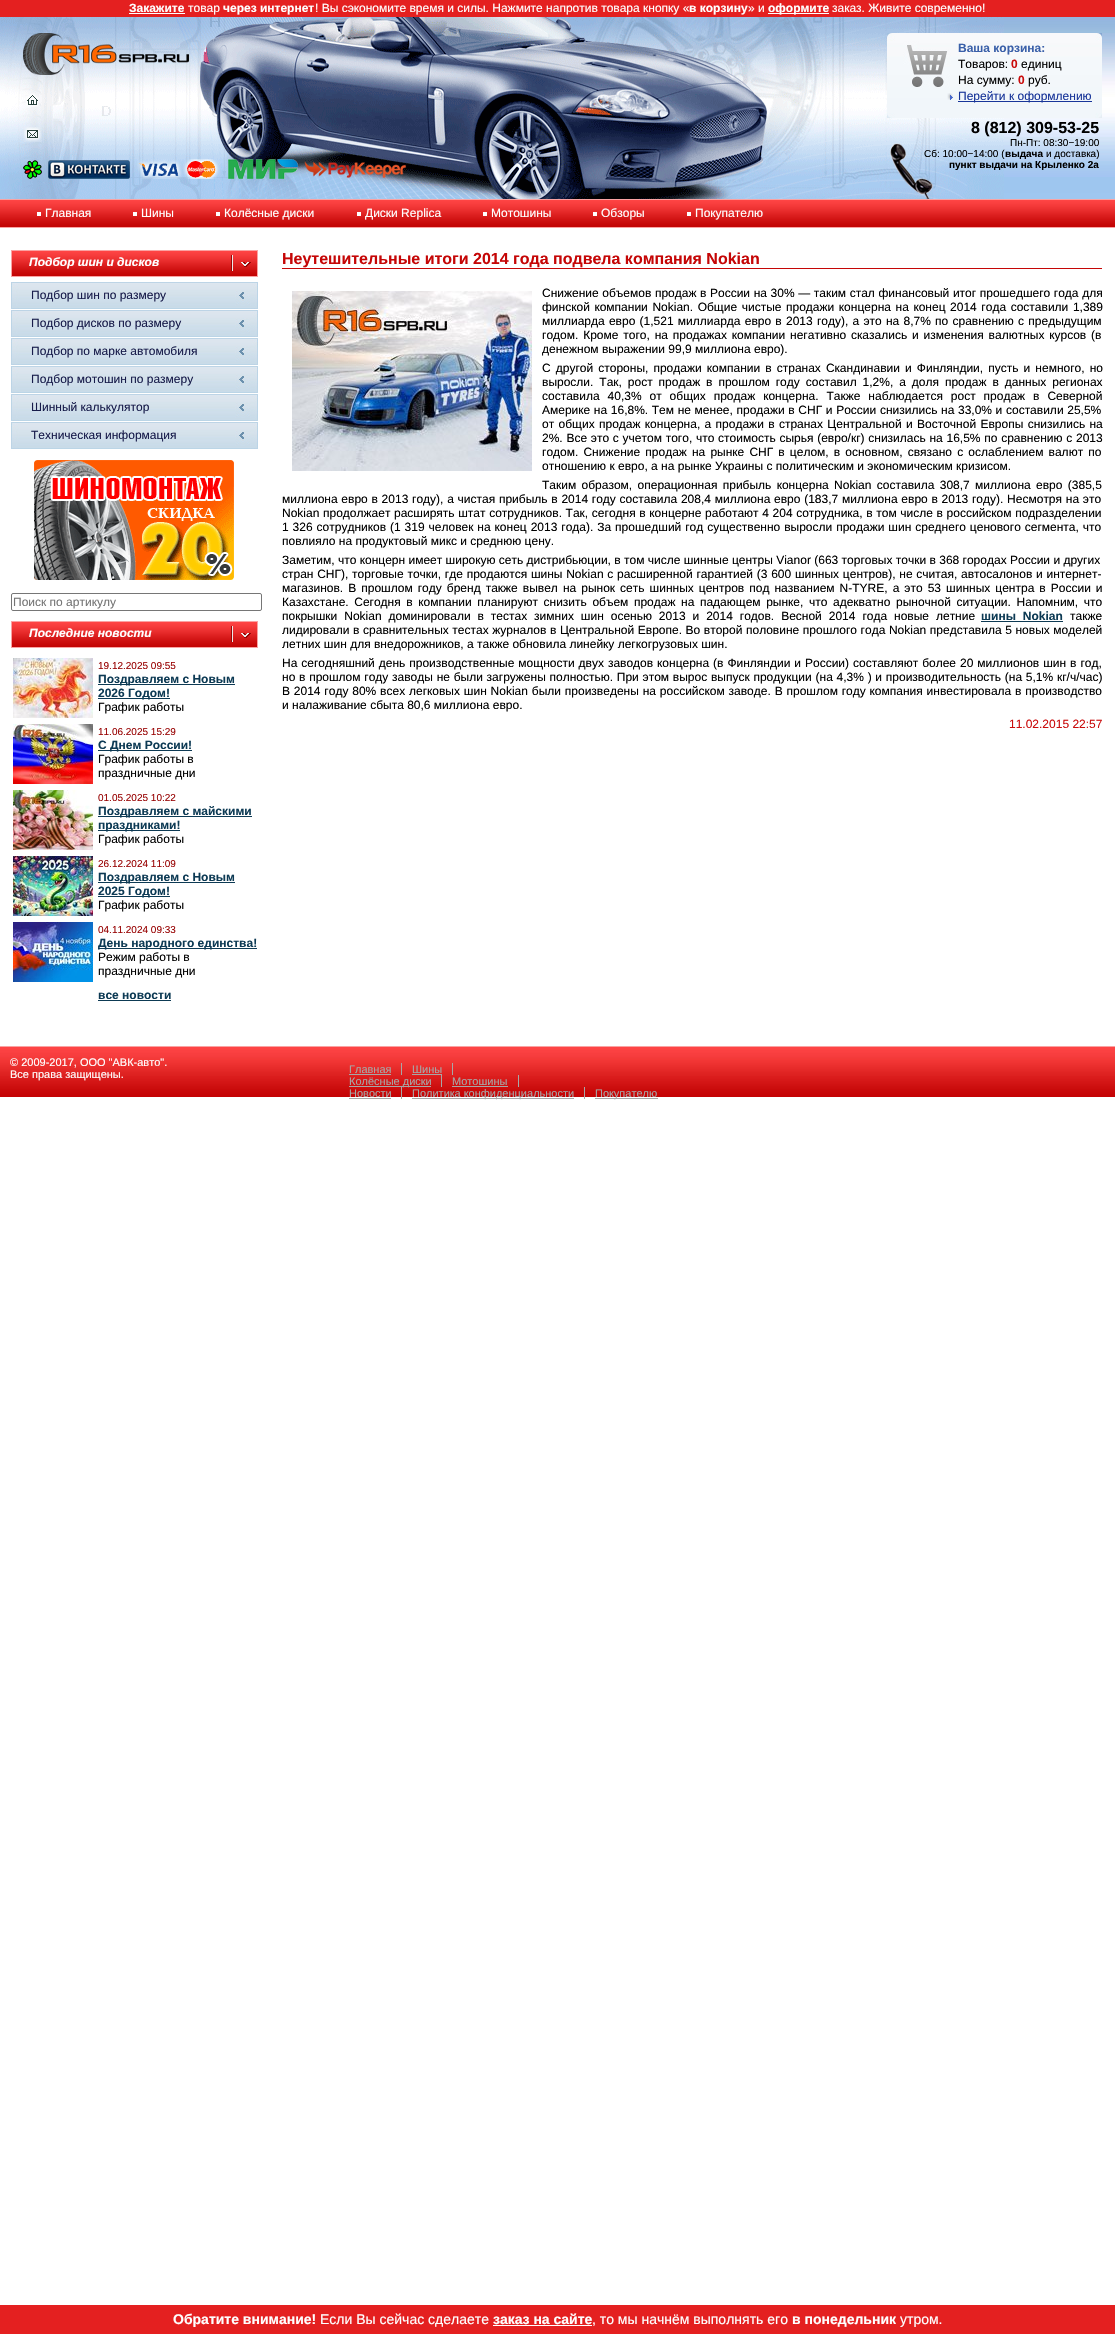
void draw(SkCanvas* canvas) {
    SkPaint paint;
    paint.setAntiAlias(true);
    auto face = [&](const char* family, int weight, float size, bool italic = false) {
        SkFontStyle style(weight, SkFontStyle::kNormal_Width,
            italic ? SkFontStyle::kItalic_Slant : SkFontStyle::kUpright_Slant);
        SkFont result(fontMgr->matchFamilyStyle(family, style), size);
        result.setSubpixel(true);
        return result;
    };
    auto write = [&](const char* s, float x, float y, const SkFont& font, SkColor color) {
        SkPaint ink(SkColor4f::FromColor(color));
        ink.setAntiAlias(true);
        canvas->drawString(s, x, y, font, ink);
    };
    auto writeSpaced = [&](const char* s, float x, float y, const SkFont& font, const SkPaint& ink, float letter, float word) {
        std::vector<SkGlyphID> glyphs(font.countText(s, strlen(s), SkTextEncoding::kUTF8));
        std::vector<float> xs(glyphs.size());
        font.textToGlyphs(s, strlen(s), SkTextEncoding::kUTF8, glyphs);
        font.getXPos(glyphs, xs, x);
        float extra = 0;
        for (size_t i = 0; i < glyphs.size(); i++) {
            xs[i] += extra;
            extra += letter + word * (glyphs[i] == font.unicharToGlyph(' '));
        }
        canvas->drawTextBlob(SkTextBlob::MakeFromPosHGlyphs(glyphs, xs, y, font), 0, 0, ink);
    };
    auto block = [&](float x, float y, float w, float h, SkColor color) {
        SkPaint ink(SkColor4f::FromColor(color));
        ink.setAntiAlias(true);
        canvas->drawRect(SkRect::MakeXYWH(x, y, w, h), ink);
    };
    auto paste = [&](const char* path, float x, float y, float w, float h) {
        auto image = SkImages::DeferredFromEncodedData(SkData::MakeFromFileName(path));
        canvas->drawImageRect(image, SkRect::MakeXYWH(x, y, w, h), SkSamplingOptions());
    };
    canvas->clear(SK_ColorWHITE);
    block(0, 0, 1115, 17, SkColorSetRGB(228, 32, 32));
    auto kFont1 = face("Liberation Sans", 700, 12);
    write("Закажите", 129, 12, kFont1, SK_ColorWHITE);
    block(129, 13, 56, 1, SK_ColorWHITE);
    auto kFont2 = face("Liberation Sans", 400, 12);
    write("товар", 188, 12, kFont2, SK_ColorWHITE);
    write("через интернет", 223, 12, kFont1, SK_ColorWHITE);
    write("! Вы сэкономите время и силы. Нажмите напротив товара кнопку «", 315, 12, kFont2, SK_ColorWHITE);
    write("в корзину", 689, 12, kFont1, SK_ColorWHITE);
    write("» и", 748, 12, kFont2, SK_ColorWHITE);
    block(768, 13, 61, 1, SK_ColorWHITE);
    write("оформите", 768, 12, kFont1, SK_ColorWHITE);
    write("заказ. Живите современно!", 832, 12, kFont2, SK_ColorWHITE);
    block(0, 2305, 1115, 29, SkColorSetRGB(228, 32, 32));
    auto kFont3 = face("Liberation Sans", 700, 14);
    write("Обратите внимание!", 173, 2324, kFont3, SK_ColorWHITE);
    auto kFont4 = face("Liberation Sans", 400, 14);
    write("Если Вы сейчас сделаете", 320, 2324, kFont4, SK_ColorWHITE);
    write("заказ на сайте", 493, 2324, kFont3, SK_ColorWHITE);
    block(493, 2325, 99, 1, SK_ColorWHITE);
    write(", то мы начнём выполнять его", 592, 2324, kFont4, SK_ColorWHITE);
    write("в понедельник", 792, 2324, kFont3, SK_ColorWHITE);
    write("утром.", 900, 2324, kFont4, SK_ColorWHITE);
    paste("pic1.png", 1004, 17, 111, 182);
    paste("pic2.png", 0, 17, 1004, 182);
    paste("pic3.png", 23, 33, 166, 42);
    paste("pic4.png", 26, 93, 13, 14);
    paste("pic5.png", 23, 127, 19, 15);
    paste("pic6.png", 23, 160, 19, 19);
    paste("pic7.png", 48, 160, 82, 19);
    paste("pic8.png", 137, 159, 83, 20);
    paste("pic9.png", 228, 159, 70, 20);
    paste("pic10.png", 304, 161, 103, 17);
    paste("pic11.png", 887, 33, 215, 85);
    write("Ваша корзина:", 958, 52, kFont1, SkColorSetRGB(58, 96, 169));
    write("Товаров:", 958, 68, kFont2, SK_ColorBLACK);
    write("0", 1011, 68, kFont1, SkColorSetRGB(202, 12, 12));
    write("единиц", 1021, 68, kFont2, SK_ColorBLACK);
    write("На сумму:", 958, 84, kFont2, SK_ColorBLACK);
    write("0", 1018, 84, kFont1, SkColorSetRGB(202, 12, 12));
    write("руб.", 1028, 84, kFont2, SK_ColorBLACK);
    paste("pic12.png", 947, 93, 6, 7);
    block(958, 101, 134, 1, SkColorSetRGB(24, 53, 153));
    write("Перейти к оформлению", 958, 100, kFont2, SkColorSetRGB(24, 53, 153));
    paste("pic13.png", 890, 143, 43, 56);
    auto kFont5 = face("Liberation Sans", 700, 16);
    write("8 (812) 309-53-25", 971, 133, kFont5, SK_ColorBLACK);
    auto kFont6 = face("Liberation Sans", 400, 10);
    write("Пн-Пт: 08:30−19:00", 1010, 146, kFont6, SK_ColorBLACK);
    write("Сб: 10:00−14:00 (", 924, 157, kFont6, SK_ColorBLACK);
    auto kFont7 = face("Liberation Sans", 700, 10);
    write("выдача", 1005, 157, kFont7, SK_ColorBLACK);
    write("и доставка)", 1046, 157, kFont6, SK_ColorBLACK);
    write("пункт выдачи на Крыленко 2а", 949, 168, kFont7, SK_ColorBLACK);
    paste("pic14.png", 0, 199, 1115, 29);
    block(37, 212, 4, 4, SK_ColorWHITE);
    write("Главная", 45, 217, kFont2, SK_ColorWHITE);
    block(133, 212, 4, 4, SK_ColorWHITE);
    write("Шины", 141, 217, kFont2, SK_ColorWHITE);
    block(216, 212, 4, 4, SK_ColorWHITE);
    write("Колёсные диски", 224, 217, kFont2, SK_ColorWHITE);
    block(357, 212, 4, 4, SK_ColorWHITE);
    write("Диски Replica", 365, 217, kFont2, SK_ColorWHITE);
    block(483, 212, 4, 4, SK_ColorWHITE);
    write("Мотошины", 491, 217, kFont2, SK_ColorWHITE);
    block(593, 212, 4, 4, SK_ColorWHITE);
    write("Обзоры", 601, 217, kFont2, SK_ColorWHITE);
    block(687, 212, 4, 4, SK_ColorWHITE);
    write("Покупателю", 695, 217, kFont2, SK_ColorWHITE);
    paste("pic15.png", 11, 250, 247, 27);
    auto kFont8 = face("Liberation Sans", 700, 12, true);
    write("Подбор шин и дисков", 29, 266, kFont8, SK_ColorWHITE);
    paste("pic16.png", 11, 282, 247, 27);
    write("Подбор шин по размеру", 31, 299, kFont2, SkColorSetRGB(24, 28, 75));
    paste("pic16.png", 11, 310, 247, 27);
    write("Подбор дисков по размеру", 31, 327, kFont2, SkColorSetRGB(24, 28, 75));
    paste("pic16.png", 11, 338, 247, 27);
    write("Подбор по марке автомобиля", 31, 355, kFont2, SkColorSetRGB(24, 28, 75));
    paste("pic16.png", 11, 366, 247, 27);
    write("Подбор мотошин по размеру", 31, 383, kFont2, SkColorSetRGB(24, 28, 75));
    paste("pic16.png", 11, 394, 247, 27);
    write("Шинный калькулятор", 31, 411, kFont2, SkColorSetRGB(24, 28, 75));
    paste("pic16.png", 11, 422, 247, 27);
    write("Техническая информация", 31, 439, kFont2, SkColorSetRGB(24, 28, 75));
    paste("pic17.png", 34, 460, 200, 120);
    paint.setStyle(SkPaint::kStroke_Style);
    paint.setStrokeWidth(1);
    paint.setColor(SkColorSetRGB(118, 118, 118));
    canvas->drawRoundRect(SkRect::MakeXYWH(11.5f, 593.5f, 250, 17), 1.5f, 1.5f, paint);
    write("Поиск по артикулу", 13, 606, kFont2, SkColorSetRGB(117, 117, 117));
    paste("pic15.png", 11, 621, 247, 27);
    write("Последние новости", 29, 637, kFont8, SK_ColorWHITE);
    paste("pic18.png", 13, 658, 80, 60);
    write("19.12.2025 09:55", 98, 669, kFont6, SkColorSetRGB(153, 5, 5));
    block(98, 684, 137, 1, SkColorSetRGB(13, 58, 84));
    write("Поздравляем с Новым", 98, 683, kFont1, SkColorSetRGB(13, 58, 84));
    block(98, 698, 72, 1, SkColorSetRGB(13, 58, 84));
    write("2026 Годом!", 98, 697, kFont1, SkColorSetRGB(13, 58, 84));
    write("График работы", 98, 711, kFont2, SK_ColorBLACK);
    paste("pic19.png", 13, 724, 80, 60);
    write("11.06.2025 15:29", 98, 735, kFont6, SkColorSetRGB(153, 5, 5));
    block(98, 750, 94, 1, SkColorSetRGB(13, 58, 84));
    write("С Днем России!", 98, 749, kFont1, SkColorSetRGB(13, 58, 84));
    write("График работы в", 98, 763, kFont2, SK_ColorBLACK);
    write("праздничные дни", 98, 777, kFont2, SK_ColorBLACK);
    paste("pic20.png", 13, 790, 80, 60);
    write("01.05.2025 10:22", 98, 801, kFont6, SkColorSetRGB(153, 5, 5));
    block(98, 816, 154, 1, SkColorSetRGB(13, 58, 84));
    write("Поздравляем с майскими", 98, 815, kFont1, SkColorSetRGB(13, 58, 84));
    block(98, 830, 82, 1, SkColorSetRGB(13, 58, 84));
    write("праздниками!", 98, 829, kFont1, SkColorSetRGB(13, 58, 84));
    write("График работы", 98, 843, kFont2, SK_ColorBLACK);
    paste("pic21.png", 13, 856, 80, 60);
    write("26.12.2024 11:09", 98, 867, kFont6, SkColorSetRGB(153, 5, 5));
    block(98, 882, 137, 1, SkColorSetRGB(13, 58, 84));
    write("Поздравляем с Новым", 98, 881, kFont1, SkColorSetRGB(13, 58, 84));
    block(98, 896, 72, 1, SkColorSetRGB(13, 58, 84));
    write("2025 Годом!", 98, 895, kFont1, SkColorSetRGB(13, 58, 84));
    write("График работы", 98, 909, kFont2, SK_ColorBLACK);
    paste("pic22.png", 13, 922, 80, 60);
    write("04.11.2024 09:33", 98, 933, kFont6, SkColorSetRGB(153, 5, 5));
    block(98, 948, 159, 1, SkColorSetRGB(13, 58, 84));
    write("День народного единства!", 98, 947, kFont1, SkColorSetRGB(13, 58, 84));
    write("Режим работы в", 98, 961, kFont2, SK_ColorBLACK);
    write("праздничные дни", 98, 975, kFont2, SK_ColorBLACK);
    write("все новости", 98, 999, kFont1, SkColorSetRGB(13, 58, 84));
    block(98, 1000, 73, 1, SkColorSetRGB(13, 58, 84));
    block(282, 268, 820, 1, SkColorSetRGB(197, 6, 6));
    write("Неутешительные итоги 2014 года подвела компания Nokian", 282, 264, kFont5, SkColorSetRGB(197, 6, 6));
    paste("pic23.png", 292, 291, 240, 180);
    paint.setStyle(SkPaint::kFill_Style);
    paint.setColor(SK_ColorBLACK);
    writeSpaced("Снижение объемов продаж в России на 30% — таким стал финансовый итог прошедшего года для", 542, 297, kFont2, paint, 0, 0.25f);
    writeSpaced("финской компании Nokian. Общие чистые продажи концерна на конец 2014 года составили 1,389", 542, 311, kFont2, paint, 0, 1.25f);
    writeSpaced("миллиарда евро (1,521 миллиарда евро в 2013 году), а это на 8,7% по сравнению с предыдущим", 542, 325, kFont2, paint, 0, 0.9f);
    writeSpaced("годом. Кроме того, на продажах компании негативно сказались и изменения валютных курсов (в", 542, 339, kFont2, paint, 0, 1.5f);
    write("денежном выражении 99,9 миллиона евро).", 542, 353, kFont2, SK_ColorBLACK);
    writeSpaced("С другой стороны, продажи компании в странах Скандинавии и Финляндии, пусть и немного, но", 542, 372, kFont2, paint, 0, 1.75f);
    writeSpaced("выросли. Так, рост продаж в прошлом году составил 1,2%, а доля продаж в данных регионах", 542, 386, kFont2, paint, 0, 2.6f);
    writeSpaced("составила 40,3% от общих продаж концерна. Также наблюдается рост продаж в Северной", 542, 400, kFont2, paint, 0, 4.6f);
    writeSpaced("Америке на 16,8%. Тем не менее, продажи в СНГ и России снизились на 33,0% и составили 25,5%", 542, 414, kFont2, paint, 0, 0.3f);
    writeSpaced("от общих продаж концерна, а продажи в странах Центральной и Восточной Европы снизились на", 542, 428, kFont2, paint, 0, 1);
    writeSpaced("2%. Все это с учетом того, что стоимость сырья (евро/кг) снизилась на 16,5% по сравнению с 2013", 542, 442, kFont2, paint, 0, 0.4f);
    writeSpaced("годом. Снижение продаж на рынке СНГ в целом, в основном, связано с ослаблением валют по", 542, 456, kFont2, paint, 0, 1.8f);
    write("отношению к евро, а на рынке Украины с политическим и экономическим кризисом.", 542, 470, kFont2, SK_ColorBLACK);
    writeSpaced("Таким образом, операционная прибыль концерна Nokian составила 308,7 миллиона евро (385,5", 542, 489, kFont2, paint, 0, 2);
    writeSpaced("миллиона евро в 2013 году), а чистая прибыль в 2014 году составила 208,4 миллиона евро (183,7 миллиона евро в 2013 году). Несмотря на это", 282, 503, kFont2, paint, 0, 0.4f);
    writeSpaced("Nokian продолжает расширять штат сотрудников. Так, сегодня в концерне работают 4 204 сотрудника, в том числе в российском подразделении", 282, 517, kFont2, paint, 0, 0.3f);
    writeSpaced("1 326 сотрудников (1 319 человек на конец 2013 года). За прошедший год существенно выросли продажи шин среднего ценового сегмента, что", 282, 531, kFont2, paint, 0, 0.6f);
    write("повлияло на продуктовый микс и среднюю цену.", 282, 545, kFont2, SK_ColorBLACK);
    write("Заметим, что концерн имеет широкую сеть дистрибьюции, в том числе шинные центры Vianor (663 торговых точки в 368 городах России и других", 282, 564, kFont2, SK_ColorBLACK);
    writeSpaced("стран СНГ), торговые точки, где продаются шины Nokian с расширенной гарантией (3 600 шинных центров), не считая, автосалонов и интернет-", 282, 578, kFont2, paint, 0, 0.4f);
    writeSpaced("магазинов. В прошлом году бренд также вывел на рынок сеть шинных центров под названием N-TYRE, а это 53 шинных центра в России и", 282, 592, kFont2, paint, 0, 1.7f);
    writeSpaced("Казахстане. Сегодня в компании планируют снизить объем продаж на падающем рынке, что адекватно рыночной ситуации. Напомним, что", 282, 606, kFont2, paint, 0, 2.25f);
    writeSpaced("покрышки Nokian доминировали в тестах зимних шин осенью 2013 и 2014 годов. Весной 2014 года новые летние", 282, 620, kFont2, paint, 0, 3.6f);
    paint.setColor(SkColorSetRGB(13, 58, 84));
    writeSpaced("шины Nokian", 981, 620, kFont1, paint, 0, 3.6f);
    block(981, 621, 82, 1, SkColorSetRGB(13, 58, 84));
    write("также", 1070, 620, kFont2, SK_ColorBLACK);
    paint.setColor(SK_ColorBLACK);
    writeSpaced("лидировали в сравнительных тестах журналов в Центральной Европе. Во второй половине прошлого года Nokian представила 5 новых моделей", 282, 634, kFont2, paint, 0, 0.25f);
    write("летних шин для внедорожников, а также обновила линейку легкогрузовых шин.", 282, 648, kFont2, SK_ColorBLACK);
    writeSpaced("На сегодняшний день производственные мощности двух заводов концерна (в Финляндии и России) составляют более 20 миллионов шин в год,", 282, 667, kFont2, paint, 0, 0.6f);
    writeSpaced("но в прошлом году заводы не были загружены полностью. При этом вырос выпуск продукции (на 4,3% ) и производительность (на 5,1% кг/ч/час)", 282, 681, kFont2, paint, 0, 0.4f);
    writeSpaced("В 2014 году 80% всех легковых шин Nokian были произведены на российском заводе. В прошлом году компания инвестировала в производство", 282, 695, kFont2, paint, 0, 0.5f);
    write("и налаживание сбыта 80,6 миллиона евро.", 282, 709, kFont2, SK_ColorBLACK);
    write("11.02.2015 22:57", 1009, 728, kFont2, SkColorSetRGB(202, 12, 12));
    paste("pic24.png", 0, 1046, 1115, 51);
    auto kFont9 = face("Liberation Sans", 400, 11);
    write("© 2009-2017, ООО \"АВК-авто\".", 10, 1066, kFont9, SK_ColorWHITE);
    write("Все права защищены.", 10, 1078, kFont9, SK_ColorWHITE);
    block(401, 1063, 1, 12, SkColorSetRGB(167, 167, 167));
    write("Главная", 349, 1073, kFont9, SkColorSetRGB(167, 167, 167));
    block(349, 1074, 42, 1, SkColorSetRGB(167, 167, 167));
    block(452, 1063, 1, 12, SkColorSetRGB(167, 167, 167));
    write("Шины", 412, 1073, kFont9, SkColorSetRGB(167, 167, 167));
    block(412, 1074, 30, 1, SkColorSetRGB(167, 167, 167));
    block(441, 1075, 1, 12, SkColorSetRGB(167, 167, 167));
    block(349, 1086, 82, 1, SkColorSetRGB(167, 167, 167));
    write("Колёсные диски", 349, 1085, kFont9, SkColorSetRGB(167, 167, 167));
    block(518, 1075, 1, 12, SkColorSetRGB(167, 167, 167));
    write("Мотошины", 452, 1085, kFont9, SkColorSetRGB(167, 167, 167));
    block(452, 1086, 56, 1, SkColorSetRGB(167, 167, 167));
    block(401, 1087, 1, 12, SkColorSetRGB(167, 167, 167));
    write("Новости", 349, 1097, kFont9, SkColorSetRGB(167, 167, 167));
    block(349, 1098, 42, 1, SkColorSetRGB(167, 167, 167));
    block(584, 1087, 1, 12, SkColorSetRGB(167, 167, 167));
    block(412, 1098, 162, 1, SkColorSetRGB(167, 167, 167));
    write("Политика конфиденциальности", 412, 1097, kFont9, SkColorSetRGB(167, 167, 167));
    block(595, 1098, 63, 1, SkColorSetRGB(167, 167, 167));
    write("Покупателю", 595, 1097, kFont9, SkColorSetRGB(167, 167, 167));
}
